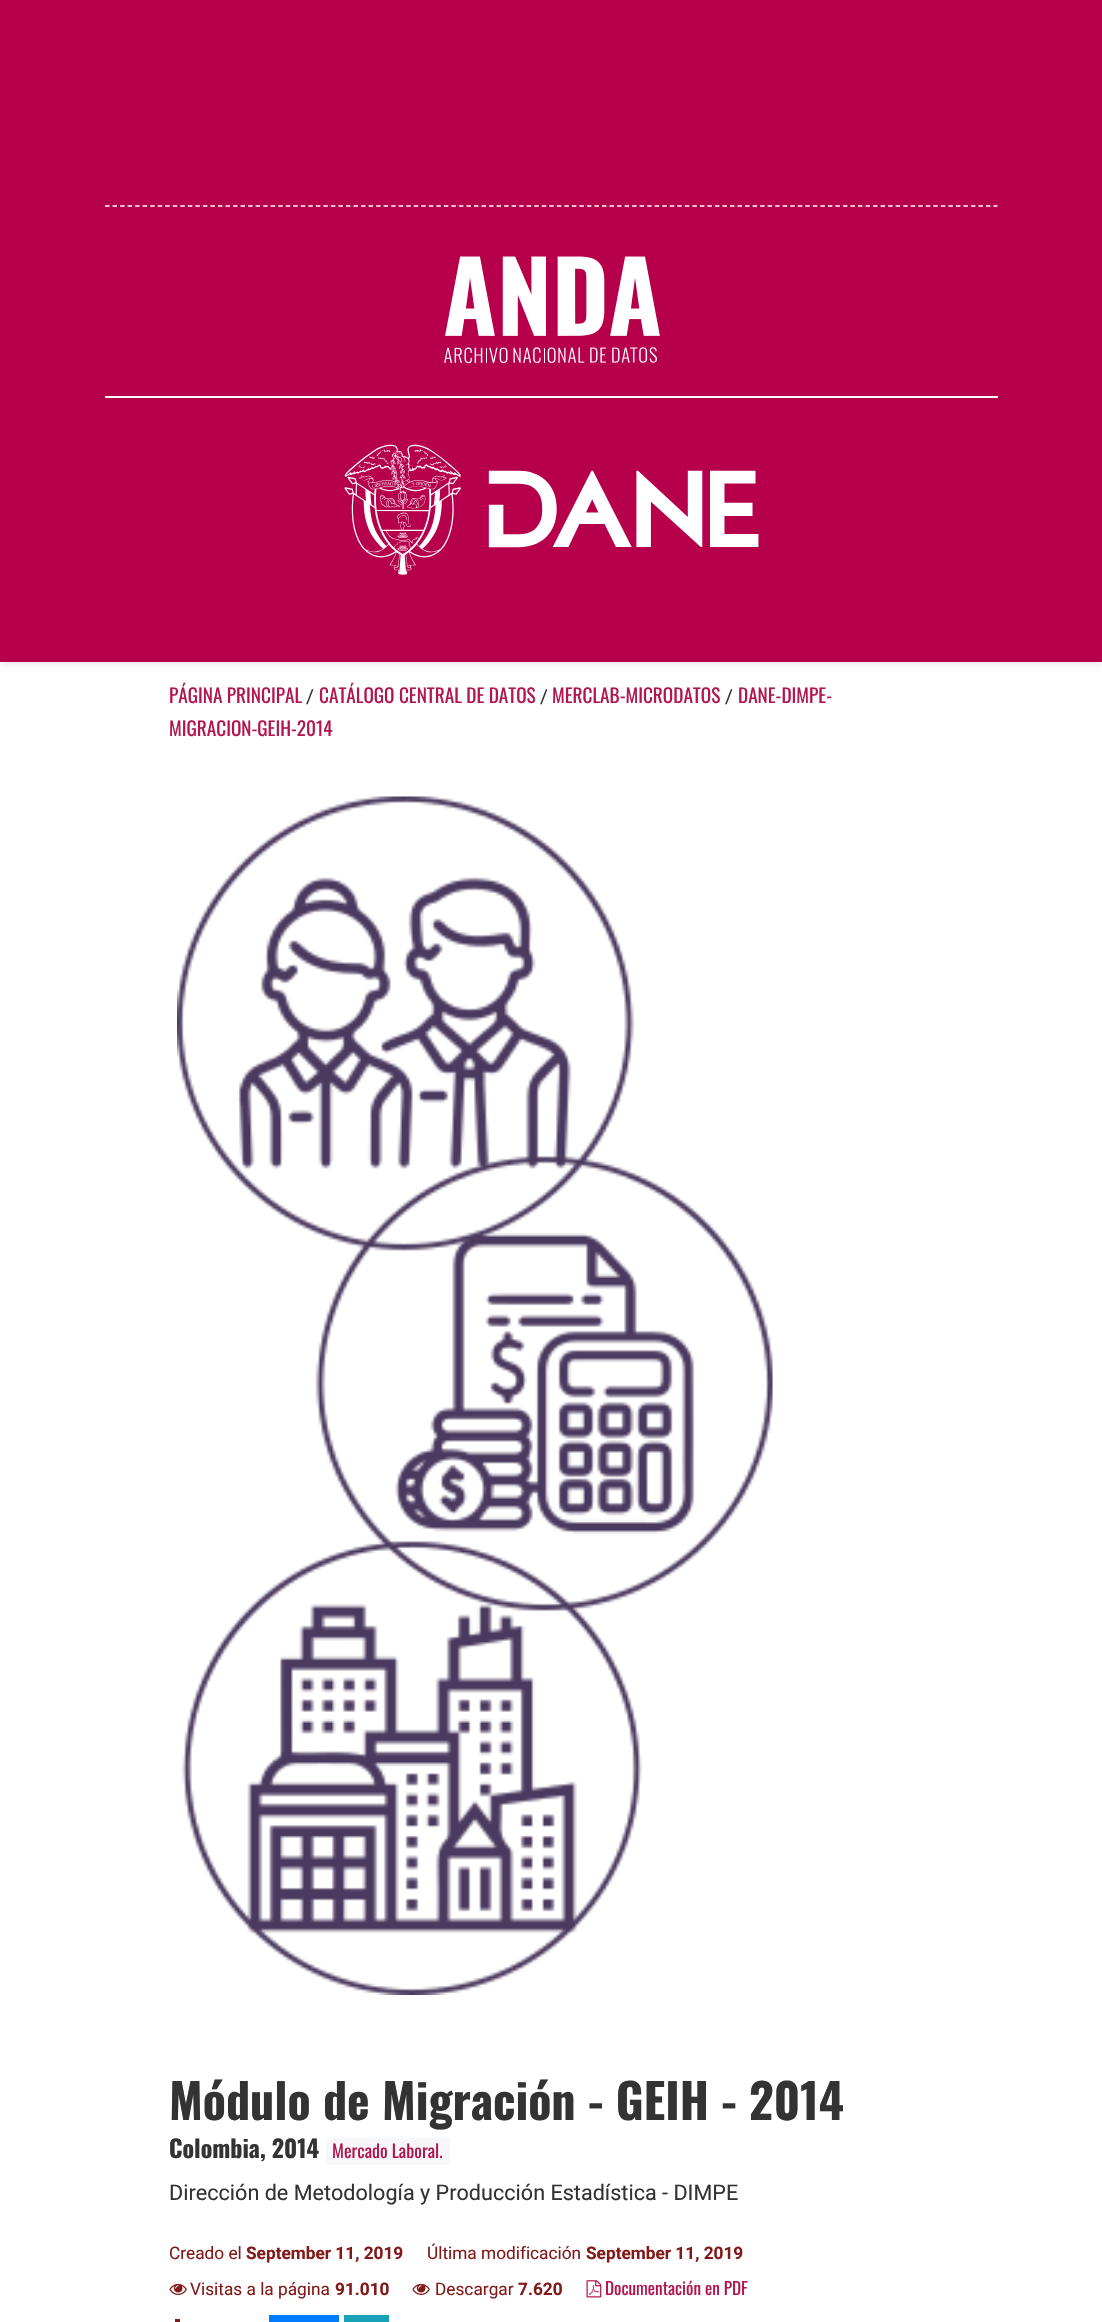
void draw(SkCanvas* canvas) {
    SkPaint paint;
    paint.setAntiAlias(true);
    auto face = [&](const char* family, int weight, float size, bool italic = false) {
        SkFontStyle style(weight, SkFontStyle::kNormal_Width,
            italic ? SkFontStyle::kItalic_Slant : SkFontStyle::kUpright_Slant);
        SkFont result(fontMgr->matchFamilyStyle(family, style), size);
        result.setSubpixel(true);
        return result;
    };
    auto write = [&](const char* s, float x, float y, const SkFont& font, SkColor color) {
        SkPaint ink(SkColor4f::FromColor(color));
        ink.setAntiAlias(true);
        canvas->drawString(s, x, y, font, ink);
    };
    auto block = [&](float x, float y, float w, float h, SkColor color) {
        SkPaint ink(SkColor4f::FromColor(color));
        ink.setAntiAlias(true);
        canvas->drawRect(SkRect::MakeXYWH(x, y, w, h), ink);
    };
    auto paste = [&](const char* path, float x, float y, float w, float h) {
        auto image = SkImages::DeferredFromEncodedData(SkData::MakeFromFileName(path));
        canvas->drawImageRect(image, SkRect::MakeXYWH(x, y, w, h), SkSamplingOptions());
    };
    canvas->clear(SK_ColorWHITE);
    paint.setColor(SkColorSetARGB(18, 0, 0, 0));
    paint.setMaskFilter(SkMaskFilter::MakeBlur(kNormal_SkBlurStyle, 3));
    canvas->drawRect(SkRect::MakeXYWH(0, -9, 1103, 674), paint);
    paint.setMaskFilter(nullptr);
    block(0, 0, 1102, 662, SkColorSetRGB(182, 0, 76));
    paint.setStyle(SkPaint::kStroke_Style);
    paint.setStrokeWidth(1.5f);
    paint.setColor(SK_ColorWHITE);
    paint.setPathEffect(SkDashPathEffect::Make({{4.5f, 3.03f}}, 0));
    canvas->drawPath(SkPathBuilder().moveTo(105, 206).lineTo(997.5f, 206).detach(), paint);
    paint.setPathEffect(nullptr);
    paste("pic1.png", 444, 256, 216, 108);
    block(105, 396, 893, 2, SK_ColorWHITE);
    paste("pic2.png", 344, 444, 415, 131);
    auto kFont1 = face("Oswald", 400, 19.25f);
    write("PÁGINA PRINCIPAL", 169, 703, kFont1, SkColorSetRGB(179, 21, 80));
    auto kFont2 = face("Roboto", 400, 19.25f);
    write("/", 306, 703, kFont2, SkColorSetRGB(51, 51, 51));
    write("CATÁLOGO CENTRAL DE DATOS", 319, 703, kFont1, SkColorSetRGB(179, 21, 80));
    write("/", 540, 703, kFont2, SkColorSetRGB(51, 51, 51));
    write("MERCLAB-MICRODATOS", 552, 703, kFont1, SkColorSetRGB(179, 21, 80));
    write("/", 725, 703, kFont2, SkColorSetRGB(51, 51, 51));
    write("DANE-DIMPE-", 738, 703, kFont1, SkColorSetRGB(179, 21, 80));
    write("MIGRACION-GEIH-2014", 169, 736, kFont1, SkColorSetRGB(179, 21, 80));
    paste("pic3.png", 177, 796, 596, 1199);
    auto kFont3 = face("Oswald", 700, 48);
    write("Módulo de Migración - GEIH - 2014", 169, 2120, kFont3, SkColorSetRGB(51, 51, 51));
    auto kFont4 = face("Oswald", 700, 24);
    write("Colombia, 2014", 169, 2158, kFont4, SkColorSetRGB(51, 51, 51));
    block(326, 2138, 124, 27, SkColorSetRGB(247, 247, 249));
    auto kFont5 = face("Oswald", 400, 18);
    write("Mercado Laboral.", 332, 2158, kFont5, SkColorSetRGB(179, 21, 80));
    auto kFont6 = face("Roboto", 400, 21.6f);
    write("Dirección de Metodología y Producción Estadística - DIMPE", 169, 2200, kFont6, SkColorSetRGB(51, 51, 51));
    auto kFont7 = face("Roboto", 400, 17.25f);
    write("Creado el", 169, 2259, kFont7, SkColorSetRGB(131, 25, 25));
    auto kFont8 = face("Roboto", 700, 17.25f);
    write("September 11, 2019", 246, 2259, kFont8, SkColorSetRGB(131, 25, 25));
    write("Última modificación", 427, 2259, kFont7, SkColorSetRGB(131, 25, 25));
    write("September 11, 2019", 586, 2259, kFont8, SkColorSetRGB(131, 25, 25));
    paste("pic4.png", 169, 2283, 18, 12);
    write("Visitas a la página", 190, 2295, kFont7, SkColorSetRGB(131, 25, 25));
    write("91.010", 335, 2295, kFont8, SkColorSetRGB(131, 25, 25));
    paste("pic4.png", 412, 2283, 18, 12);
    write("Descargar", 435, 2295, kFont7, SkColorSetRGB(131, 25, 25));
    write("7.620", 518, 2295, kFont8, SkColorSetRGB(131, 25, 25));
    paste("pic5.png", 586, 2280, 16, 18);
    auto kFont9 = face("Oswald", 400, 17.25f);
    write("Documentación en PDF", 605, 2295, kFont9, SkColorSetRGB(179, 21, 80));
    block(175, 2319, 5, 3, SkColorSetRGB(131, 25, 25));
    block(269, 2315, 70, 7, SkColorSetRGB(0, 123, 255));
    block(344, 2315, 45, 7, SkColorSetRGB(23, 162, 184));
}
